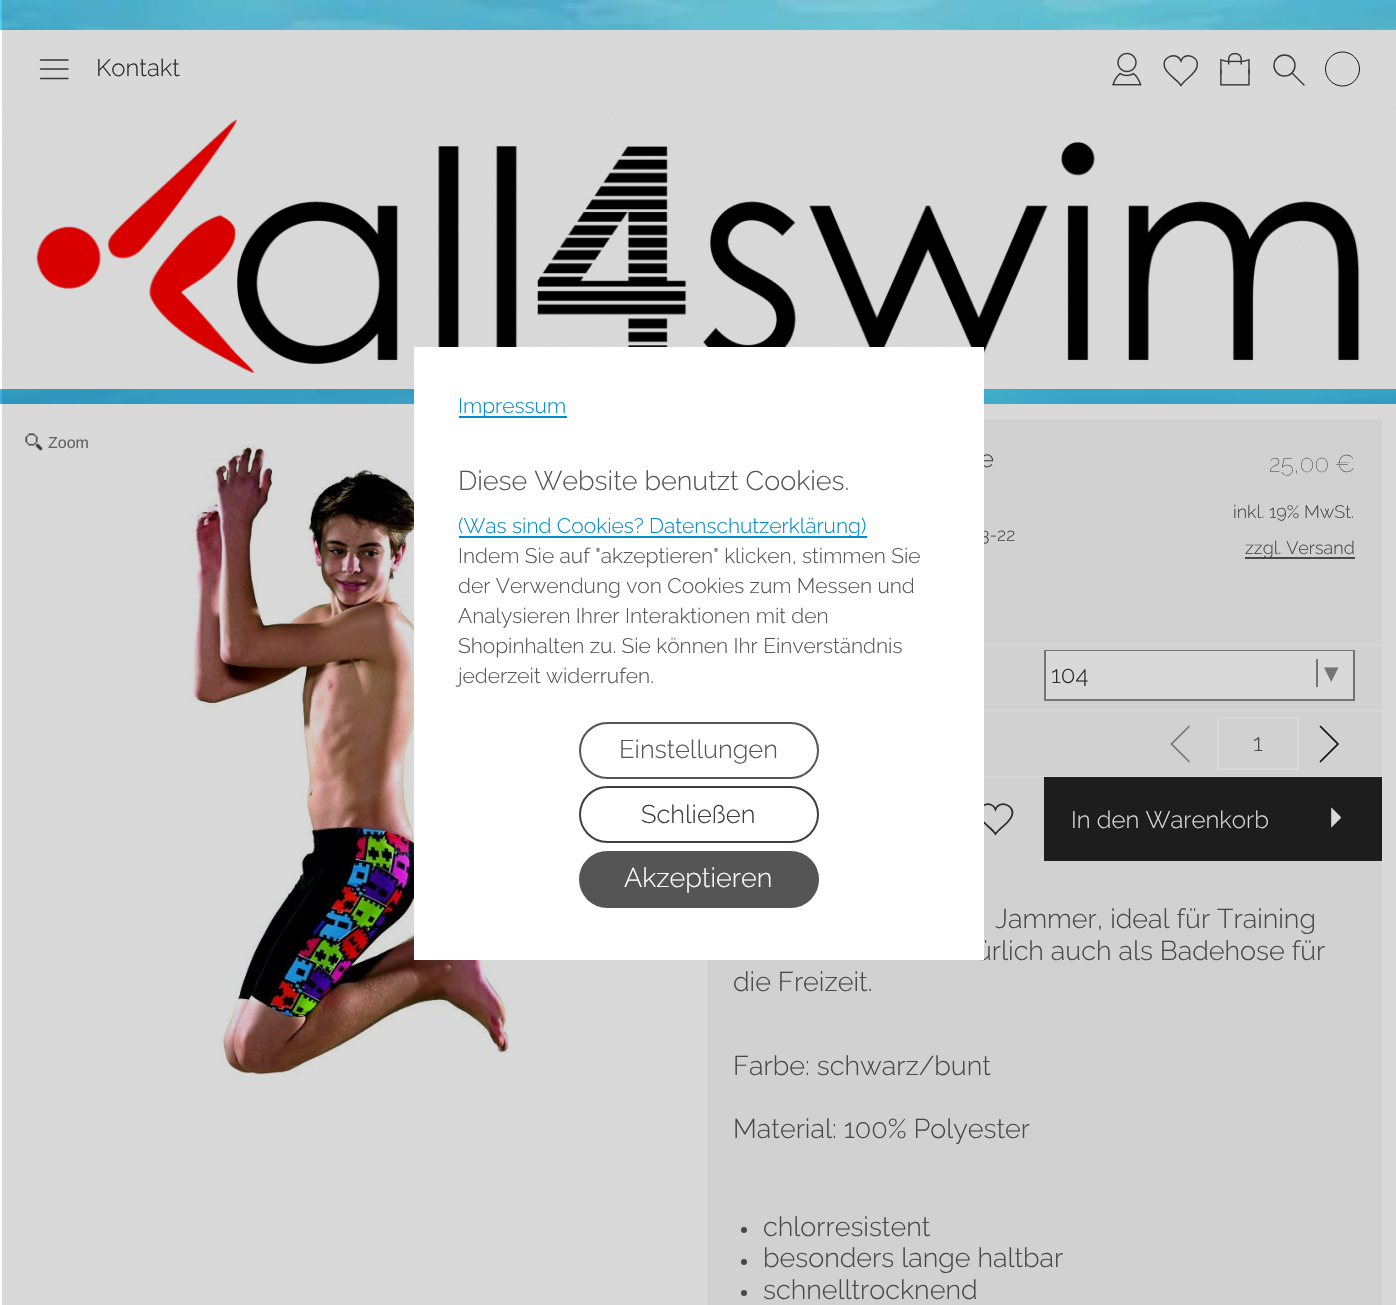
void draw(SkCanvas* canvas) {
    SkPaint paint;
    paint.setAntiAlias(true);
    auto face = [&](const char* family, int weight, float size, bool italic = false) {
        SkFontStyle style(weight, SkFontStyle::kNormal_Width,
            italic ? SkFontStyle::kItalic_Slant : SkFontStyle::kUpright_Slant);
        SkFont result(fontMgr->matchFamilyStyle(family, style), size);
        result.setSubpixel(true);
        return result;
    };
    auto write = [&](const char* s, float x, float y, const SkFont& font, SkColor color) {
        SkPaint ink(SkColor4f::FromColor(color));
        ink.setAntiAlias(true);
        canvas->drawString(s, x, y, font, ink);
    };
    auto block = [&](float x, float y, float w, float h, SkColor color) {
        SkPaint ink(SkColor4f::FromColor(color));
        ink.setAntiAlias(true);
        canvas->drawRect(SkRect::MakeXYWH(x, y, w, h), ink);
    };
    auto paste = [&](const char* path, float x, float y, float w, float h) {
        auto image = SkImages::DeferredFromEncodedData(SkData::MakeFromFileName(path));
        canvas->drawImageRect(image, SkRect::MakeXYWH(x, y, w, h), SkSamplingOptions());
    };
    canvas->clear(SK_ColorWHITE);
    paste("pic1.png", 0, 0, 1396, 404);
    block(0, 30, 2, 77, SK_ColorWHITE);
    block(2, 30, 1394, 77, SkColorSetRGB(217, 217, 217));
    paint.setStyle(SkPaint::kStroke_Style);
    paint.setStrokeWidth(1.4f);
    paint.setStrokeCap(SkPaint::kRound_Cap);
    paint.setColor(SkColorSetRGB(54, 54, 54));
    canvas->drawPath(SkPathBuilder().moveTo(40.5f, 78.5f).lineTo(68, 78.5f).moveTo(40.5f, 69).lineTo(68, 69).moveTo(40.5f, 60).lineTo(68, 60).detach(), paint);
    auto kFont1 = face("Raleway", 300, 24);
    write("Kontakt", 96, 76, kFont1, SkColorSetRGB(43, 43, 43));
    paste("pic2.png", 1112, 52, 30, 34);
    paint.setStrokeCap(SkPaint::kButt_Cap);
    canvas->drawPath(SkPathBuilder().moveTo(1181, 85.5f).cubicTo(1176.5f, 79, 1167, 74.5f, 1164.5f, 67).cubicTo(1161, 56.5f, 1177.5f, 51, 1181, 61).cubicTo(1184, 51, 1200.5f, 56.5f, 1197, 67).cubicTo(1195, 74.5f, 1185, 79, 1181, 85.5f).close().detach(), paint);
    paste("pic3.png", 1220, 52, 30, 34);
    canvas->drawCircle(1284.5f, 65.5f, 10.5f, paint);
    paint.setStrokeCap(SkPaint::kRound_Cap);
    canvas->drawPath(SkPathBuilder().moveTo(1292, 73).lineTo(1304, 85).detach(), paint);
    paint.setStrokeWidth(0.9f);
    paint.setStrokeCap(SkPaint::kButt_Cap);
    paint.setColor(SK_ColorBLACK);
    canvas->drawCircle(1342.5f, 69, 17, paint);
    block(0, 373, 2, 16, SK_ColorWHITE);
    block(2, 373, 1394, 16, SkColorSetRGB(217, 217, 217));
    paste("pic4.png", 0, 107, 1396, 266);
    block(2, 404, 1394, 901, SkColorSetRGB(217, 217, 217));
    paste("pic5.png", 25, 433, 18, 18);
    auto kFont2 = face("Liberation Sans", 400, 16);
    write("Zoom", 48, 448, kFont2, SkColorSetRGB(98, 98, 98));
    paste("pic6.png", 191, 445, 323, 635);
    block(984, 419, 398, 225, SkColorSetRGB(209, 209, 209));
    write("e", 980, 467, kFont1, SkColorSetRGB(72, 72, 72));
    auto kFont3 = face("Raleway", 300, 18);
    write("3-22", 980, 541, kFont3, SkColorSetRGB(72, 72, 72));
    auto kFont4 = face("Raleway", 100, 24);
    write("25,00 €", 1269, 472, kFont4, SkColorSetRGB(72, 72, 72));
    write("inkl. 19% MwSt.", 1233, 518, kFont3, SkColorSetRGB(72, 72, 72));
    block(1245, 557, 110, 2, SkColorSetRGB(72, 72, 72));
    write("zzgl. Versand", 1245, 554, kFont3, SkColorSetRGB(72, 72, 72));
    block(984, 645, 398, 65, SkColorSetRGB(209, 209, 209));
    paint.setStrokeWidth(2);
    paint.setColor(SkColorSetRGB(116, 116, 116));
    canvas->drawRect(SkRect::MakeXYWH(1045, 651, 309, 49), paint);
    block(1046, 651, 307, 48, SkColorSetRGB(217, 217, 217));
    write("104", 1051, 683, kFont1, SkColorSetRGB(43, 43, 43));
    block(1316, 659, 2, 28, SkColorSetRGB(116, 116, 116));
    auto kFont5 = face("DejaVu Sans Mono", 400, 24);
    write("▼", 1324, 681, kFont5, SkColorSetRGB(116, 116, 116));
    block(984, 711, 398, 65, SkColorSetRGB(209, 209, 209));
    paint.setStrokeWidth(1.6f);
    paint.setColor(SkColorSetRGB(116, 115, 116));
    canvas->drawPath(SkPathBuilder().moveTo(1189.5f, 726).lineTo(1171.5f, 744).lineTo(1189.5f, 762).detach(), paint);
    paint.setStrokeWidth(2);
    paint.setColor(SkColorSetRGB(217, 217, 217));
    canvas->drawRect(SkRect::MakeXYWH(1218, 718, 80, 51), paint);
    write("1", 1253, 751, kFont1, SkColorSetRGB(72, 72, 72));
    paint.setStrokeWidth(1.6f);
    paint.setColor(SK_ColorBLACK);
    canvas->drawPath(SkPathBuilder().moveTo(1320, 726).lineTo(1338, 744).lineTo(1320, 762).detach(), paint);
    block(984, 777, 60, 84, SkColorSetRGB(209, 209, 209));
    paint.setStrokeWidth(1.7f);
    paint.setColor(SkColorSetRGB(43, 43, 43));
    canvas->drawPath(SkPathBuilder().moveTo(995.5f, 834).cubicTo(991.5f, 827.5f, 981.5f, 823, 979.5f, 815.5f).cubicTo(976, 805, 992, 799.5f, 995.5f, 809.5f).cubicTo(999, 799.5f, 1015.5f, 805, 1012, 815.5f).cubicTo(1009.5f, 823, 1000, 827.5f, 995.5f, 834).close().detach(), paint);
    block(1044, 777, 338, 84, SkColorSetRGB(29, 29, 29));
    write("In den Warenkorb", 1071, 828, kFont1, SkColorSetRGB(217, 217, 217));
    paste("pic7.png", 1311, 807, 30, 21);
    block(707, 861, 675, 444, SkColorSetRGB(209, 209, 209));
    auto kFont6 = face("Raleway", 300, 27);
    write("Jammer, ideal für Training", 995, 928, kFont6, SkColorSetRGB(72, 72, 72));
    write("ürlich auch als Badehose für", 976, 960, kFont6, SkColorSetRGB(72, 72, 72));
    write("die Freizeit.", 733, 991, kFont6, SkColorSetRGB(72, 72, 72));
    write("Farbe: schwarz/bunt", 733, 1075, kFont6, SkColorSetRGB(72, 72, 72));
    write("Material: 100% Polyester", 733, 1138, kFont6, SkColorSetRGB(72, 72, 72));
    paint.setStyle(SkPaint::kFill_Style);
    paint.setColor(SkColorSetRGB(72, 72, 72));
    canvas->drawCircle(744, 1230, 3, paint);
    write("chlorresistent", 763, 1236, kFont6, SkColorSetRGB(72, 72, 72));
    canvas->drawCircle(744, 1262, 3, paint);
    write("besonders lange haltbar", 763, 1267, kFont6, SkColorSetRGB(72, 72, 72));
    canvas->drawCircle(744, 1293, 3, paint);
    write("schnelltrocknend", 763, 1299, kFont6, SkColorSetRGB(72, 72, 72));
    block(414, 347, 570, 613, SK_ColorWHITE);
    block(459, 416, 108, 2, SkColorSetRGB(0, 141, 203));
    auto kFont7 = face("Raleway", 300, 21);
    write("Impressum", 458, 413, kFont7, SkColorSetRGB(0, 141, 203));
    write("Diese Website benutzt Cookies.", 458, 490, kFont6, SkColorSetRGB(85, 85, 85));
    block(459, 536, 408, 2, SkColorSetRGB(0, 141, 203));
    write("(Was sind Cookies? Datenschutzerklärung)", 458, 533, kFont7, SkColorSetRGB(0, 141, 203));
    write("Indem Sie auf \"akzeptieren\" klicken, stimmen Sie", 458, 563, kFont7, SkColorSetRGB(85, 85, 85));
    write("der Verwendung von Cookies zum Messen und", 458, 593, kFont7, SkColorSetRGB(85, 85, 85));
    write("Analysieren Ihrer Interaktionen mit den", 458, 623, kFont7, SkColorSetRGB(85, 85, 85));
    write("Shopinhalten zu. Sie können Ihr Einverständnis", 458, 653, kFont7, SkColorSetRGB(85, 85, 85));
    write("jederzeit widerrufen.", 458, 683, kFont7, SkColorSetRGB(85, 85, 85));
    paint.setStyle(SkPaint::kStroke_Style);
    paint.setStrokeWidth(2);
    paint.setColor(SkColorSetRGB(85, 85, 85));
    canvas->drawRoundRect(SkRect::MakeXYWH(580, 723, 238, 55), 27.5f, 27.5f, paint);
    auto kFont8 = face("Raleway", 300, 25.5f);
    write("Einstellungen", 619, 758, kFont8, SkColorSetRGB(85, 85, 85));
    paint.setColor(SkColorSetRGB(62, 62, 62));
    canvas->drawRoundRect(SkRect::MakeXYWH(580, 787, 238, 55), 27.5f, 27.5f, paint);
    write("Schließen", 641, 823, kFont8, SkColorSetRGB(62, 62, 62));
    paint.setStyle(SkPaint::kFill_Style);
    paint.setColor(SkColorSetRGB(85, 85, 85));
    canvas->drawRoundRect(SkRect::MakeXYWH(580, 852, 238, 55), 27.5f, 27.5f, paint);
    paint.setStyle(SkPaint::kStroke_Style);
    canvas->drawRoundRect(SkRect::MakeXYWH(580, 852, 238, 55), 27.5f, 27.5f, paint);
    write("Akzeptieren", 624, 887, kFont6, SK_ColorWHITE);
}
